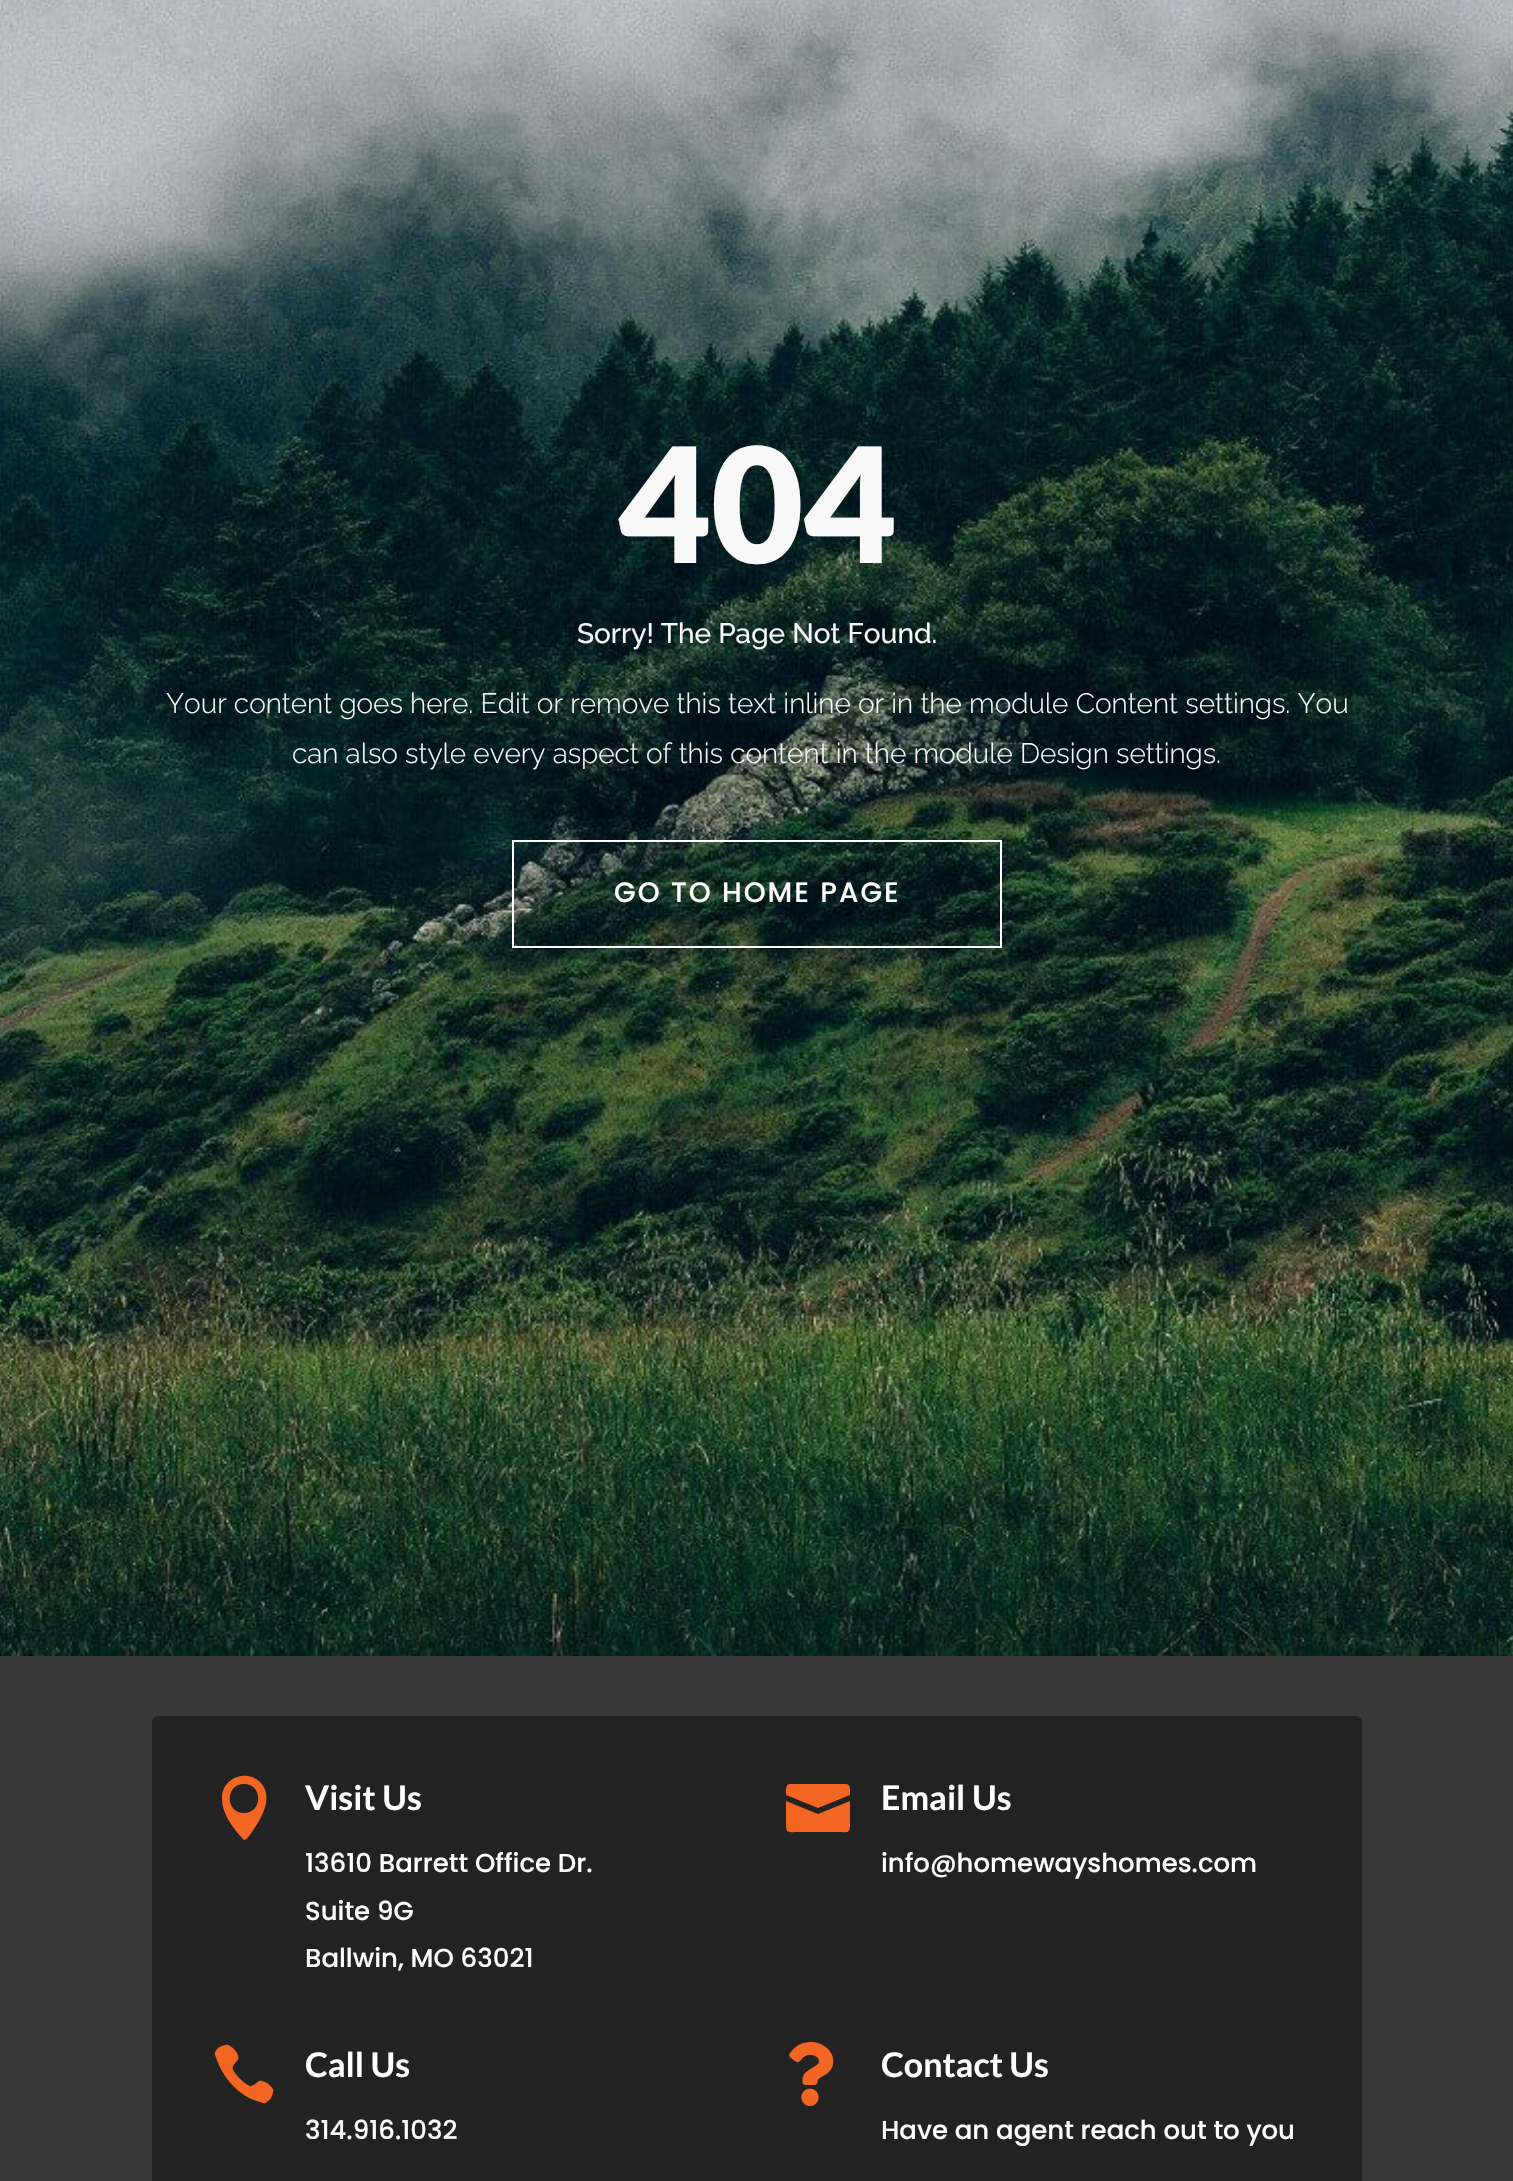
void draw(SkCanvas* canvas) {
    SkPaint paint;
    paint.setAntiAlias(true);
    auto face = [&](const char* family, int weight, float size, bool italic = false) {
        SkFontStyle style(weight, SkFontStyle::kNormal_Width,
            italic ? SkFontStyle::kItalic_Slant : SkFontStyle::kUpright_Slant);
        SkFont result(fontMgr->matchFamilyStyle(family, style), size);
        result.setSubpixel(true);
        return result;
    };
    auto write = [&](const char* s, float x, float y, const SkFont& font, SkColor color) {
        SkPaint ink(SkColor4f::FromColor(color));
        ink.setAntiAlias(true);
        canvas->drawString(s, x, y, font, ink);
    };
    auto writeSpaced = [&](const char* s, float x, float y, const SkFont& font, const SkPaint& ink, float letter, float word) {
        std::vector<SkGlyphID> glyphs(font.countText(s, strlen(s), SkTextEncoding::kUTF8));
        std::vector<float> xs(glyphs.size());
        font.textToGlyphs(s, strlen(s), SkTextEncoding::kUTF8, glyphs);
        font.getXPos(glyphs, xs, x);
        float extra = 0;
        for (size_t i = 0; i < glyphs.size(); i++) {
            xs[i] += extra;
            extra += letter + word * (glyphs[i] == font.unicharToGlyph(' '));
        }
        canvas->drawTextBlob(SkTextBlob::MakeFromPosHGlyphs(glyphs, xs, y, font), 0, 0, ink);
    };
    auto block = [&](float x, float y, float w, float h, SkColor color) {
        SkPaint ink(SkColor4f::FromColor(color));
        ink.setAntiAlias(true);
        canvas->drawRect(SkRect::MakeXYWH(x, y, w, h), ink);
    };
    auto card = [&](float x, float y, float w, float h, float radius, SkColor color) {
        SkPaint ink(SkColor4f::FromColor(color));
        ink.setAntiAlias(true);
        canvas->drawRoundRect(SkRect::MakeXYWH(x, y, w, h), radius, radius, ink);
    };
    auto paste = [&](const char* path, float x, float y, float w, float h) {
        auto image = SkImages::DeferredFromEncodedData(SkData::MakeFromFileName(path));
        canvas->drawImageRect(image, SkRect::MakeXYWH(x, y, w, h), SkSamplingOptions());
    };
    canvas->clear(SK_ColorWHITE);
    paste("pic1.png", 0, 0, 1513, 1656);
    auto kFont1 = face("Lato", 900, 160);
    write("404", 618, 563, kFont1, SkColorSetRGB(249, 249, 249));
    auto kFont2 = face("Raleway", 100, 28);
    write("Sorry! The Page Not Found.", 577, 643, kFont2, SkColorSetRGB(249, 249, 249));
    auto kFont3 = face("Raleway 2", 100, 28);
    write("Your content goes here. Edit or remove this text inline or in the module Content settings. You", 166, 713, kFont3, SkColorSetRGB(249, 249, 249));
    write("can also style every aspect of this content in the module Design settings.", 292, 763, kFont3, SkColorSetRGB(249, 249, 249));
    paint.setStyle(SkPaint::kStroke_Style);
    paint.setStrokeWidth(2);
    paint.setColor(SK_ColorWHITE);
    canvas->drawRect(SkRect::MakeXYWH(513, 841, 488, 106), paint);
    auto kFont4 = face("Poppins", 500, 28);
    paint.setStyle(SkPaint::kFill_Style);
    writeSpaced("GO TO HOME PAGE", 614, 902, kFont4, paint, 2, 0);
    block(0, 1656, 1513, 525, SkColorSetRGB(56, 56, 56));
    card(152, 1716, 1210, 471, 6, SkColorSetRGB(34, 34, 34));
    paint.setColor(SkColorSetRGB(242, 101, 34));
    canvas->drawPath(SkPathBuilder().moveTo(243, 1839).lineTo(244, 1840).cubicTo(247, 1840, 251, 1833, 252, 1832).cubicTo(261, 1819, 274, 1798, 261, 1783).cubicTo(247, 1768, 221, 1778, 222, 1799).cubicTo(222, 1814, 233, 1828, 243, 1839).close().moveTo(244, 1784).cubicTo(263, 1784, 263, 1813, 244, 1813).cubicTo(225, 1813, 225, 1784, 244, 1784).close().detach(), paint);
    auto kFont5 = face("Lato", 700, 34);
    write("Visit Us", 305, 1810, kFont5, SK_ColorWHITE);
    auto kFont6 = face("Poppins", 500, 26);
    write("13610 Barrett Office Dr.", 305, 1872, kFont6, SK_ColorWHITE);
    write("Suite 9G", 305, 1920, kFont6, SK_ColorWHITE);
    write("Ballwin, MO 63021", 305, 1967, kFont6, SK_ColorWHITE);
    canvas->drawPath(SkPathBuilder().moveTo(846, 1784).lineTo(790, 1784).cubicTo(785, 1784, 786, 1791, 786, 1795).lineTo(818, 1808).lineTo(850, 1795).cubicTo(850, 1791, 851, 1784, 846, 1784).close().moveTo(786, 1801).lineTo(786, 1824).cubicTo(786, 1834, 788, 1832, 799, 1832).lineTo(837, 1832).cubicTo(848, 1832, 850, 1834, 850, 1824).lineTo(850, 1801).lineTo(818, 1814).close().detach(), paint);
    write("Email Us", 881, 1810, kFont5, SK_ColorWHITE);
    write("info@homewayshomes.com", 881, 1872, kFont6, SK_ColorWHITE);
    paste("pic2.png", 214, 2044, 60, 60);
    write("Call Us", 305, 2077, kFont5, SK_ColorWHITE);
    write("314.916.1032", 305, 2139, kFont6, SK_ColorWHITE);
    paste("pic3.png", 789, 2042, 45, 64);
    write("Contact Us", 881, 2077, kFont5, SK_ColorWHITE);
    write("Have an agent reach out to you", 881, 2139, kFont6, SK_ColorWHITE);
}
